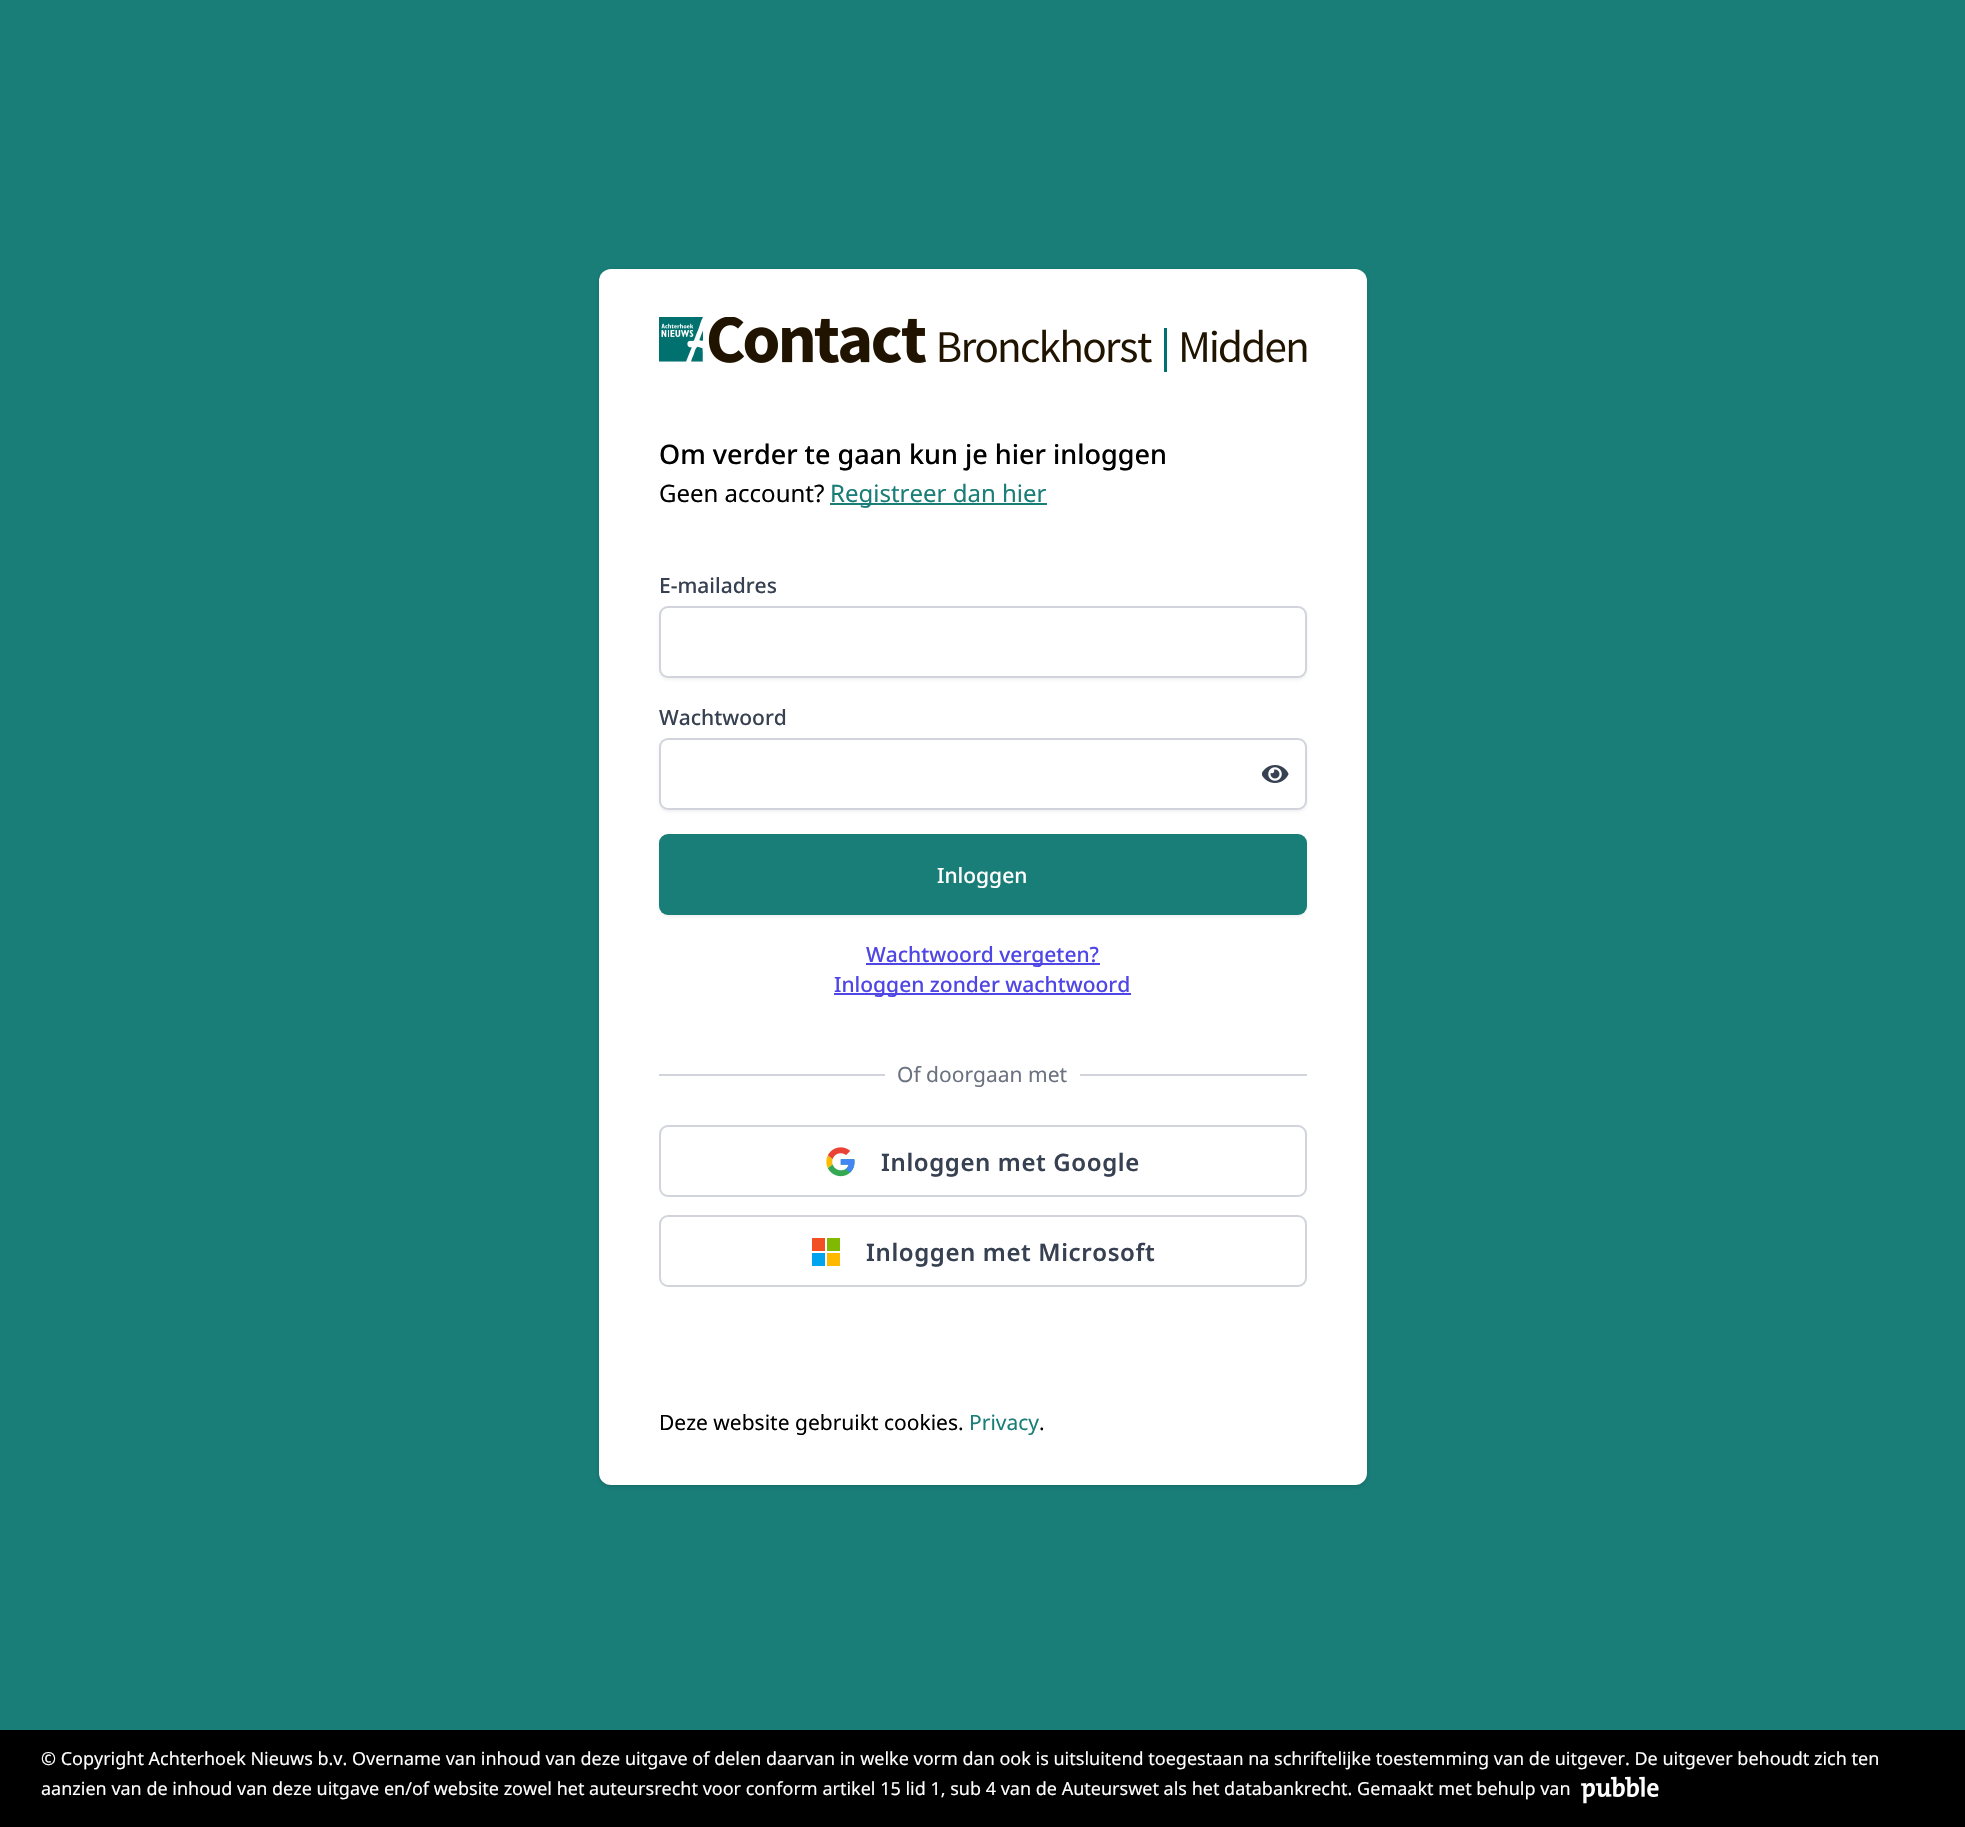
void draw(SkCanvas* canvas) {
    SkPaint paint;
    paint.setAntiAlias(true);
    auto face = [&](const char* family, int weight, float size, bool italic = false) {
        SkFontStyle style(weight, SkFontStyle::kNormal_Width,
            italic ? SkFontStyle::kItalic_Slant : SkFontStyle::kUpright_Slant);
        SkFont result(fontMgr->matchFamilyStyle(family, style), size);
        result.setSubpixel(true);
        return result;
    };
    auto write = [&](const char* s, float x, float y, const SkFont& font, SkColor color) {
        SkPaint ink(SkColor4f::FromColor(color));
        ink.setAntiAlias(true);
        canvas->drawString(s, x, y, font, ink);
    };
    auto writeSpaced = [&](const char* s, float x, float y, const SkFont& font, const SkPaint& ink, float letter, float word) {
        std::vector<SkGlyphID> glyphs(font.countText(s, strlen(s), SkTextEncoding::kUTF8));
        std::vector<float> xs(glyphs.size());
        font.textToGlyphs(s, strlen(s), SkTextEncoding::kUTF8, glyphs);
        font.getXPos(glyphs, xs, x);
        float extra = 0;
        for (size_t i = 0; i < glyphs.size(); i++) {
            xs[i] += extra;
            extra += letter + word * (glyphs[i] == font.unicharToGlyph(' '));
        }
        canvas->drawTextBlob(SkTextBlob::MakeFromPosHGlyphs(glyphs, xs, y, font), 0, 0, ink);
    };
    auto block = [&](float x, float y, float w, float h, SkColor color) {
        SkPaint ink(SkColor4f::FromColor(color));
        ink.setAntiAlias(true);
        canvas->drawRect(SkRect::MakeXYWH(x, y, w, h), ink);
    };
    auto card = [&](float x, float y, float w, float h, float radius, SkColor color) {
        SkPaint ink(SkColor4f::FromColor(color));
        ink.setAntiAlias(true);
        canvas->drawRoundRect(SkRect::MakeXYWH(x, y, w, h), radius, radius, ink);
    };
    auto paste = [&](const char* path, float x, float y, float w, float h) {
        auto image = SkImages::DeferredFromEncodedData(SkData::MakeFromFileName(path));
        canvas->drawImageRect(image, SkRect::MakeXYWH(x, y, w, h), SkSamplingOptions());
    };
    canvas->clear(SkColorSetRGB(25, 125, 120));
    paint.setColor(SkColorSetARGB(26, 0, 0, 0));
    paint.setMaskFilter(SkMaskFilter::MakeBlur(kNormal_SkBlurStyle, 1.5f));
    canvas->drawRoundRect(SkRect::MakeXYWH(600, 272, 765, 1213), 11, 11, paint);
    paint.setMaskFilter(nullptr);
    paint.setMaskFilter(SkMaskFilter::MakeBlur(kNormal_SkBlurStyle, 2));
    canvas->drawRoundRect(SkRect::MakeXYWH(599, 270, 768, 1217), 12, 12, paint);
    paint.setMaskFilter(nullptr);
    card(599, 269, 768, 1216, 12, SK_ColorWHITE);
    paste("pic1.png", 659, 317, 648, 55);
    auto kFont1 = face("Noto Sans", 500, 27);
    write("Om verder te gaan kun je hier inloggen", 659, 464, kFont1, SK_ColorBLACK);
    auto kFont2 = face("Noto Sans", 400, 24);
    write("Geen account?", 659, 502, kFont2, SK_ColorBLACK);
    block(830, 503, 217, 2, SkColorSetRGB(25, 125, 120));
    write("Registreer dan hier", 830, 502, kFont2, SkColorSetRGB(25, 125, 120));
    auto kFont3 = face("Noto Sans", 500, 21);
    write("E-mailadres", 659, 593, kFont3, SkColorSetRGB(55, 65, 81));
    paint.setColor(SkColorSetARGB(13, 0, 0, 0));
    paint.setMaskFilter(SkMaskFilter::MakeBlur(kNormal_SkBlurStyle, 1.5f));
    canvas->drawRoundRect(SkRect::MakeXYWH(659, 608, 648, 72), 9, 9, paint);
    paint.setMaskFilter(nullptr);
    paint.setColor(SK_ColorWHITE);
    canvas->drawRoundRect(SkRect::MakeXYWH(660, 607, 646, 70), 8, 8, paint);
    paint.setStyle(SkPaint::kStroke_Style);
    paint.setStrokeWidth(2);
    paint.setColor(SkColorSetRGB(209, 213, 219));
    canvas->drawRoundRect(SkRect::MakeXYWH(660, 607, 646, 70), 8, 8, paint);
    write("Wachtwoord", 659, 725, kFont3, SkColorSetRGB(55, 65, 81));
    paint.setStyle(SkPaint::kFill_Style);
    paint.setColor(SkColorSetARGB(13, 0, 0, 0));
    paint.setMaskFilter(SkMaskFilter::MakeBlur(kNormal_SkBlurStyle, 1.5f));
    canvas->drawRoundRect(SkRect::MakeXYWH(659, 740, 648, 72), 9, 9, paint);
    paint.setMaskFilter(nullptr);
    paint.setColor(SK_ColorWHITE);
    canvas->drawRoundRect(SkRect::MakeXYWH(660, 739, 646, 70), 8, 8, paint);
    paint.setStyle(SkPaint::kStroke_Style);
    paint.setColor(SkColorSetRGB(209, 213, 219));
    canvas->drawRoundRect(SkRect::MakeXYWH(660, 739, 646, 70), 8, 8, paint);
    paste("pic2.png", 1262, 765, 27, 18);
    paint.setStyle(SkPaint::kFill_Style);
    paint.setColor(SkColorSetARGB(13, 0, 0, 0));
    paint.setMaskFilter(SkMaskFilter::MakeBlur(kNormal_SkBlurStyle, 1.5f));
    canvas->drawRoundRect(SkRect::MakeXYWH(659, 836, 648, 81), 9, 9, paint);
    paint.setMaskFilter(nullptr);
    card(659, 834, 648, 81, 9, SkColorSetRGB(25, 125, 120));
    write("Inloggen", 937, 883, kFont3, SK_ColorWHITE);
    block(866, 963, 234, 2, SkColorSetRGB(79, 70, 229));
    write("Wachtwoord vergeten?", 866, 962, kFont3, SkColorSetRGB(79, 70, 229));
    block(834, 993, 297, 2, SkColorSetRGB(79, 70, 229));
    write("Inloggen zonder wachtwoord", 834, 992, kFont3, SkColorSetRGB(79, 70, 229));
    block(659, 1074, 648, 2, SkColorSetRGB(209, 213, 219));
    block(885, 1074, 195, 2, SK_ColorWHITE);
    auto kFont4 = face("Noto Sans", 400, 21);
    write("Of doorgaan met", 897, 1082, kFont4, SkColorSetRGB(107, 114, 128));
    paint.setStyle(SkPaint::kStroke_Style);
    paint.setColor(SkColorSetRGB(209, 213, 219));
    canvas->drawRoundRect(SkRect::MakeXYWH(660, 1126, 646, 70), 8, 8, paint);
    paste("pic3.png", 826, 1147, 29, 30);
    auto kFont5 = face("Noto Sans", 600, 24);
    paint.setStyle(SkPaint::kFill_Style);
    paint.setColor(SkColorSetRGB(55, 65, 81));
    writeSpaced("Inloggen met Google", 881, 1171, kFont5, paint, 0.6f, 0);
    paint.setStyle(SkPaint::kStroke_Style);
    paint.setColor(SkColorSetRGB(209, 213, 219));
    canvas->drawRoundRect(SkRect::MakeXYWH(660, 1216, 646, 70), 8, 8, paint);
    block(812, 1238, 13, 13, SkColorSetRGB(242, 80, 34));
    block(812, 1253, 13, 13, SkColorSetRGB(0, 164, 239));
    block(827, 1238, 13, 13, SkColorSetRGB(127, 186, 0));
    block(827, 1253, 13, 13, SkColorSetRGB(255, 185, 0));
    paint.setStyle(SkPaint::kFill_Style);
    paint.setColor(SkColorSetRGB(55, 65, 81));
    writeSpaced("Inloggen met Microsoft", 866, 1261, kFont5, paint, 0.6f, 0);
    write("Deze website gebruikt cookies.", 659, 1430, kFont4, SK_ColorBLACK);
    write("Privacy", 969, 1430, kFont4, SkColorSetRGB(25, 125, 120));
    write(".", 1039, 1430, kFont4, SK_ColorBLACK);
    block(0, 1730, 1965, 97, SK_ColorBLACK);
    auto kFont6 = face("Noto Sans", 400, 18);
    write("© Copyright Achterhoek Nieuws b.v. Overname van inhoud van deze uitgave of delen daarvan in welke vorm dan ook is uitsluitend toegestaan na schriftelijke toestemming van de uitgever. De uitgever behoudt zich ten", 41, 1765, kFont6, SK_ColorWHITE);
    write("aanzien van de inhoud van deze uitgave en/of website zowel het auteursrecht voor conform artikel 15 lid 1, sub 4 van de Auteurswet als het databankrecht. Gemaakt met behulp van", 41, 1795, kFont6, SK_ColorWHITE);
    paste("pic4.png", 1581, 1776, 78, 28);
}
